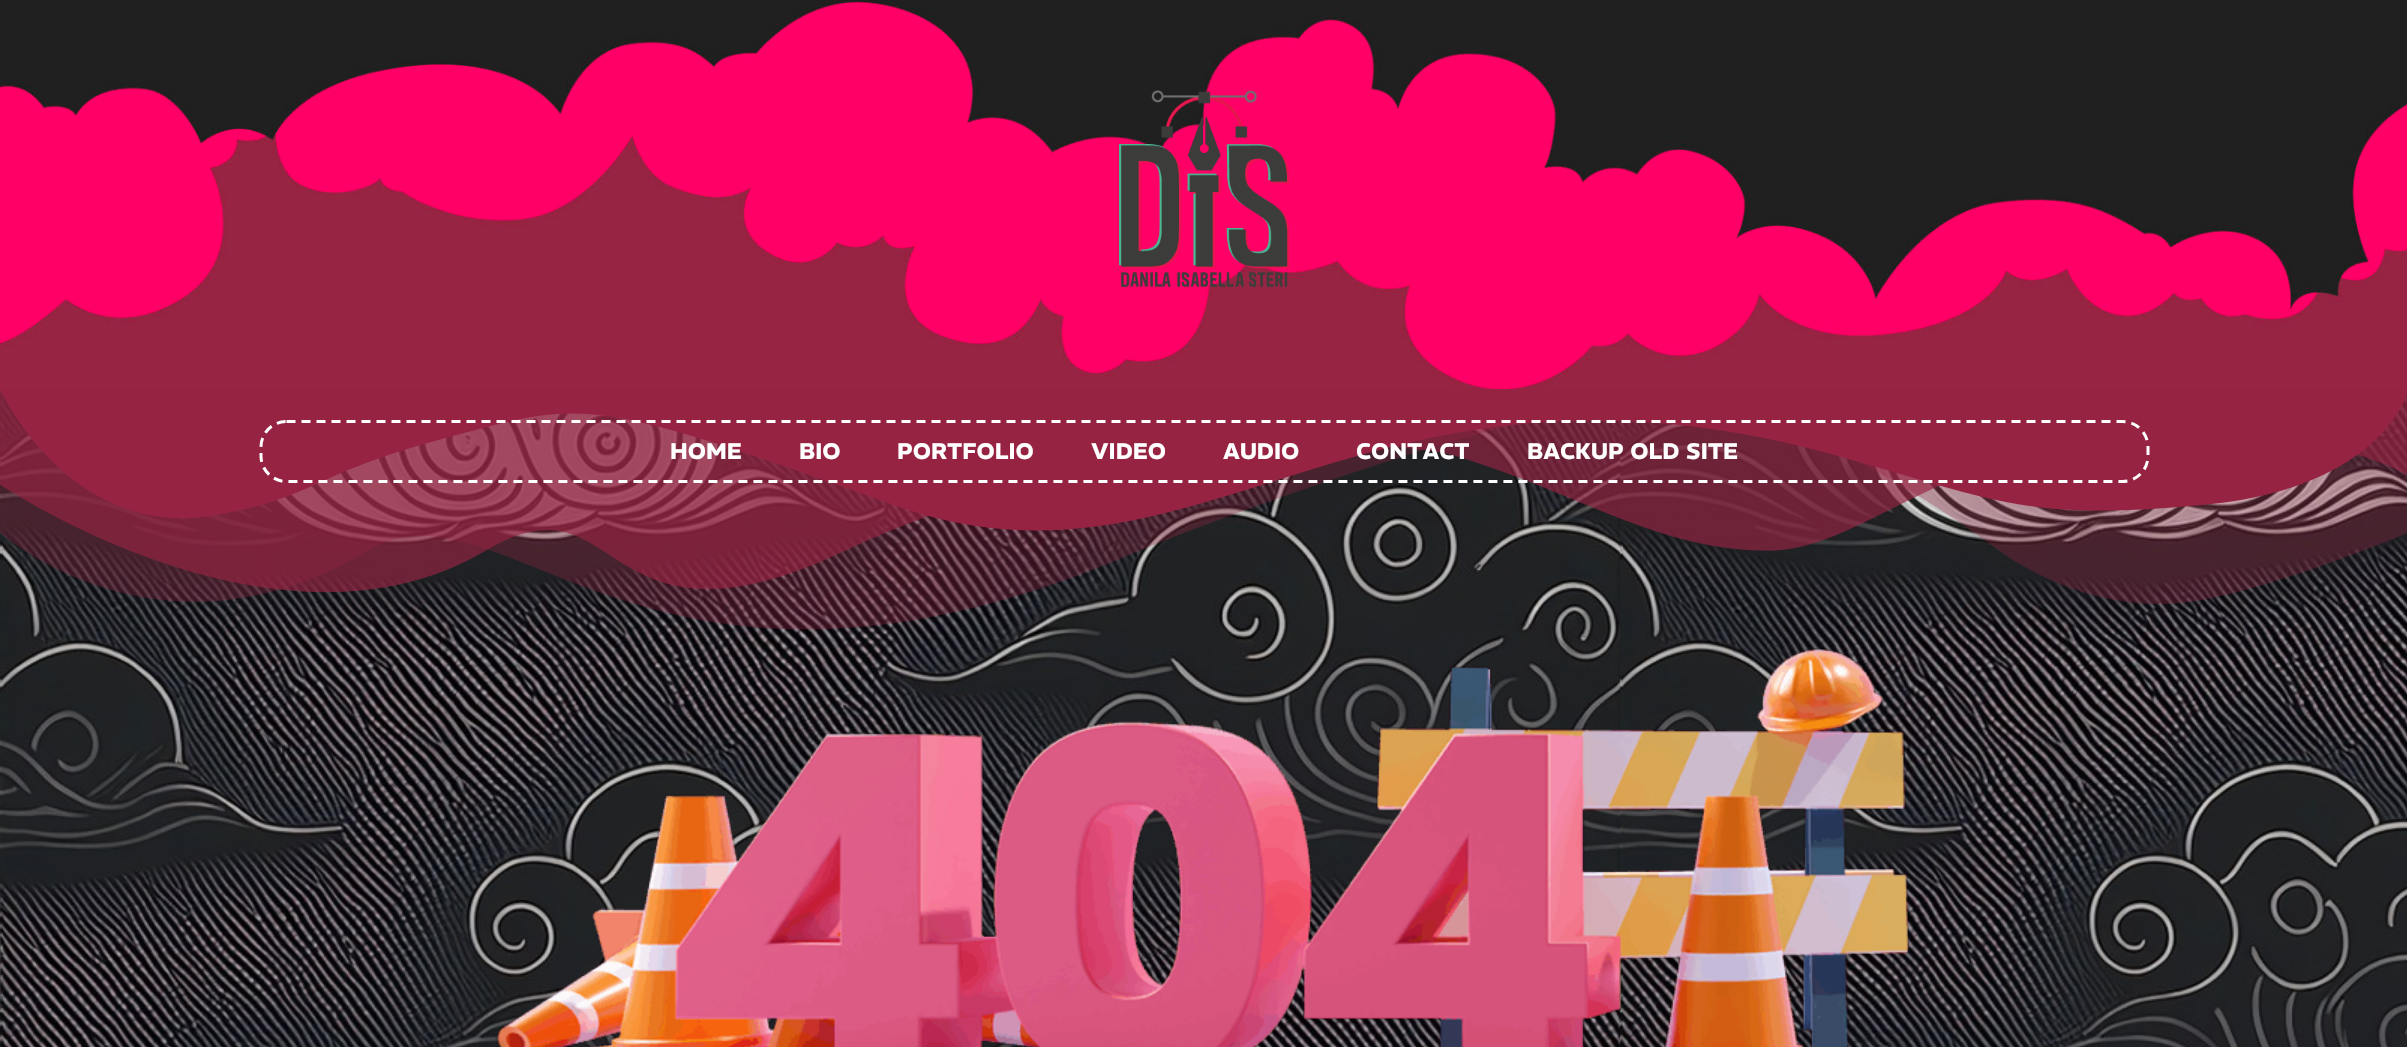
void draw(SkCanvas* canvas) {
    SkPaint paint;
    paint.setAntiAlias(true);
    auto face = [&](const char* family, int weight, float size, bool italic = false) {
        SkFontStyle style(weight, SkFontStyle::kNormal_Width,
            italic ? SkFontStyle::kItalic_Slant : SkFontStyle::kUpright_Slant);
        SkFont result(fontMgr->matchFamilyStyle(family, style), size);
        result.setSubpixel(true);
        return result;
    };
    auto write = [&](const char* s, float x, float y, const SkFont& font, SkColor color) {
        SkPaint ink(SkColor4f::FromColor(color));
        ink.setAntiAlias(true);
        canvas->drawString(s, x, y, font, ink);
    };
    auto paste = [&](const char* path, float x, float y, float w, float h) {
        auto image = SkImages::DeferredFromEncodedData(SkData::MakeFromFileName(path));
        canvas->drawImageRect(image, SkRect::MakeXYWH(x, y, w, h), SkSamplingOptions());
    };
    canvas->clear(SK_ColorWHITE);
    paste("pic1.png", 0, 390, 2407, 657);
    paste("pic2.png", 0, 0, 2407, 390);
    paste("pic3.png", 1119, 90, 171, 198);
    paste("pic4.png", 0, 389, 2407, 241);
    paint.setStyle(SkPaint::kStroke_Style);
    paint.setStrokeWidth(3);
    paint.setColor(SK_ColorWHITE);
    paint.setPathEffect(SkDashPathEffect::Make({{9, 6}}, 0));
    canvas->drawPath(SkPathBuilder().moveTo(286.5f, 421.5f).lineTo(2122.5f, 421.5f).cubicTo(2136.5f, 421.5f, 2148, 433, 2148, 447).lineTo(2148, 456).cubicTo(2148, 470, 2136.5f, 481.5f, 2122.5f, 481.5f).lineTo(286.5f, 481.5f).cubicTo(272.5f, 481.5f, 261, 470, 261, 456).lineTo(261, 447).cubicTo(261, 433, 272.5f, 421.5f, 286.5f, 421.5f).close().detach(), paint);
    paint.setPathEffect(nullptr);
    auto kFont1 = face("REM", 700, 22.5f);
    write("HOME", 670, 459, kFont1, SK_ColorWHITE);
    write("BIO", 799, 459, kFont1, SK_ColorWHITE);
    write("PORTFOLIO", 897, 459, kFont1, SK_ColorWHITE);
    write("VIDEO", 1091, 459, kFont1, SK_ColorWHITE);
    write("AUDIO", 1223, 459, kFont1, SK_ColorWHITE);
    write("CONTACT", 1356, 459, kFont1, SK_ColorWHITE);
    write("BACKUP OLD SITE", 1527, 459, kFont1, SK_ColorWHITE);
    paste("pic5.png", 495, 648, 1425, 399);
}
